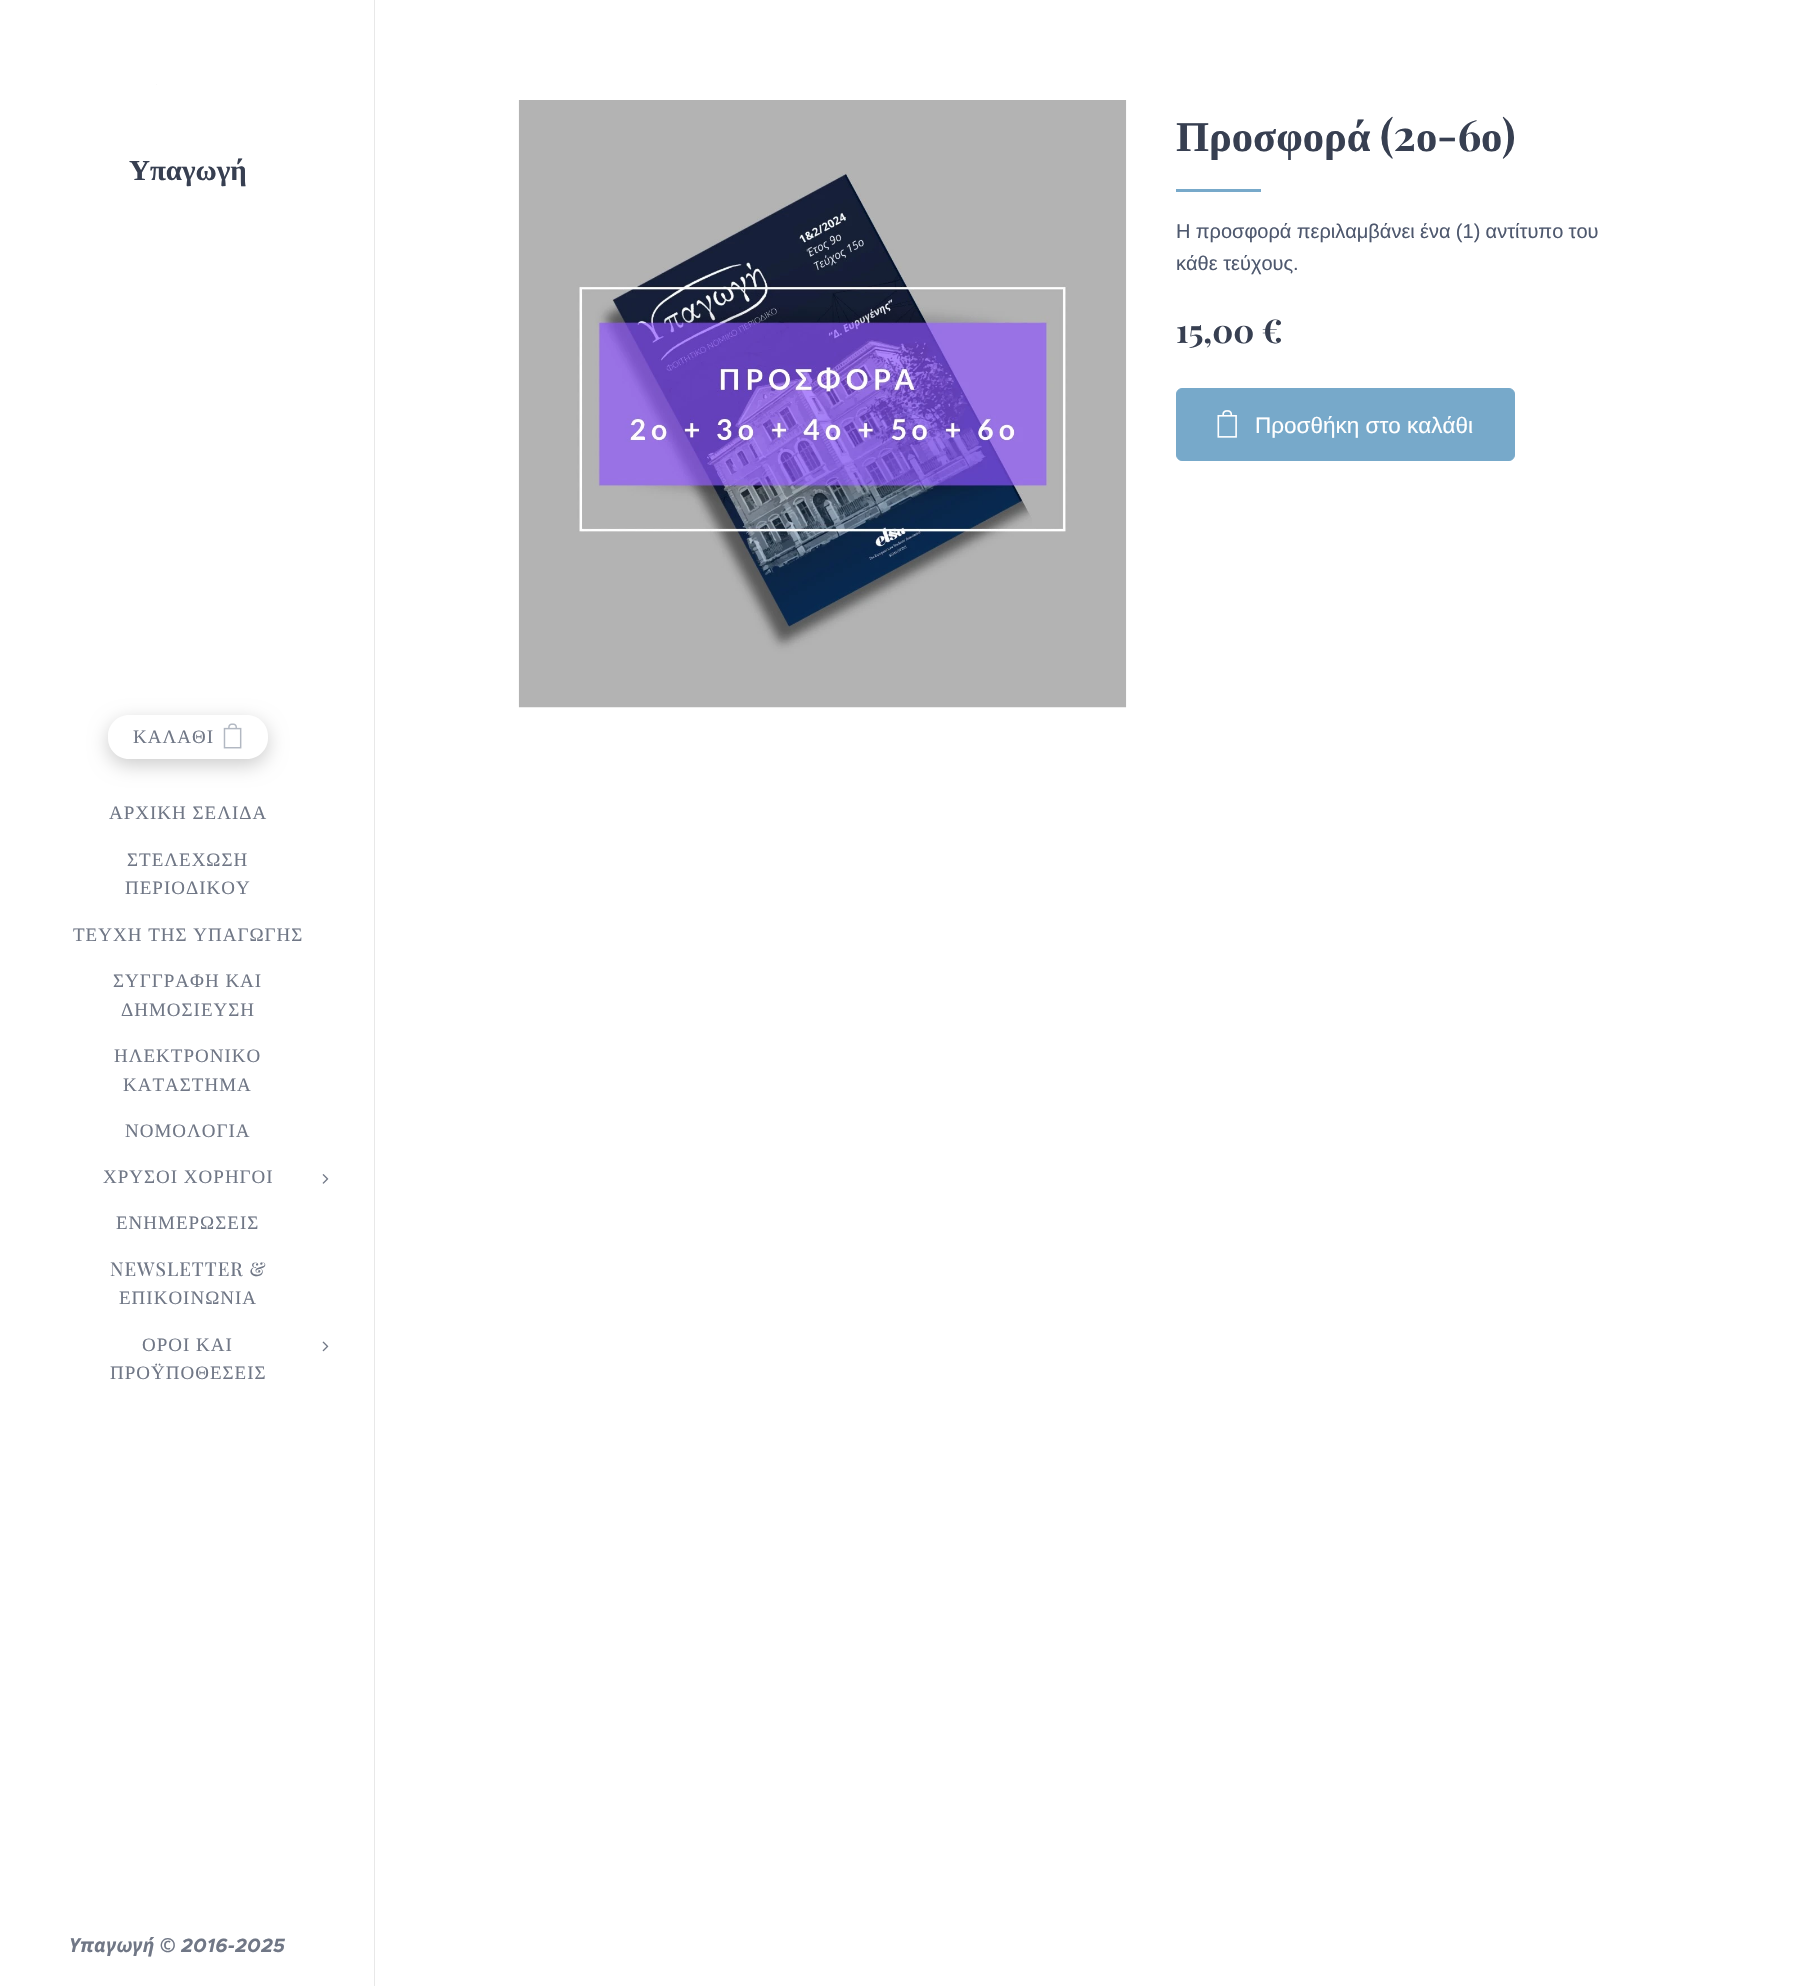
void draw(SkCanvas* canvas) {
    SkPaint paint;
    paint.setAntiAlias(true);
    auto face = [&](const char* family, int weight, float size, bool italic = false) {
        SkFontStyle style(weight, SkFontStyle::kNormal_Width,
            italic ? SkFontStyle::kItalic_Slant : SkFontStyle::kUpright_Slant);
        SkFont result(fontMgr->matchFamilyStyle(family, style), size);
        result.setSubpixel(true);
        return result;
    };
    auto write = [&](const char* s, float x, float y, const SkFont& font, SkColor color) {
        SkPaint ink(SkColor4f::FromColor(color));
        ink.setAntiAlias(true);
        canvas->drawString(s, x, y, font, ink);
    };
    auto writeSpaced = [&](const char* s, float x, float y, const SkFont& font, const SkPaint& ink, float letter, float word) {
        std::vector<SkGlyphID> glyphs(font.countText(s, strlen(s), SkTextEncoding::kUTF8));
        std::vector<float> xs(glyphs.size());
        font.textToGlyphs(s, strlen(s), SkTextEncoding::kUTF8, glyphs);
        font.getXPos(glyphs, xs, x);
        float extra = 0;
        for (size_t i = 0; i < glyphs.size(); i++) {
            xs[i] += extra;
            extra += letter + word * (glyphs[i] == font.unicharToGlyph(' '));
        }
        canvas->drawTextBlob(SkTextBlob::MakeFromPosHGlyphs(glyphs, xs, y, font), 0, 0, ink);
    };
    auto block = [&](float x, float y, float w, float h, SkColor color) {
        SkPaint ink(SkColor4f::FromColor(color));
        ink.setAntiAlias(true);
        canvas->drawRect(SkRect::MakeXYWH(x, y, w, h), ink);
    };
    auto card = [&](float x, float y, float w, float h, float radius, SkColor color) {
        SkPaint ink(SkColor4f::FromColor(color));
        ink.setAntiAlias(true);
        canvas->drawRoundRect(SkRect::MakeXYWH(x, y, w, h), radius, radius, ink);
    };
    auto paste = [&](const char* path, float x, float y, float w, float h) {
        auto image = SkImages::DeferredFromEncodedData(SkData::MakeFromFileName(path));
        canvas->drawImageRect(image, SkRect::MakeXYWH(x, y, w, h), SkSamplingOptions());
    };
    canvas->clear(SK_ColorWHITE);
    block(156, 84, 1, 1, SkColorSetRGB(250, 250, 250));
    auto kFont1 = face("Liberation Serif", 700, 29);
    write("Υπαγωγή", 129, 180, kFont1, SkColorSetRGB(55, 63, 81));
    canvas->save();
    canvas->clipPath(SkPathBuilder(SkPathFillType::kEvenOdd).moveTo(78, 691).lineTo(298, 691).lineTo(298, 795).lineTo(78, 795).close().moveTo(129, 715).lineTo(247, 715).cubicTo(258.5f, 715, 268, 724.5f, 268, 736).lineTo(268, 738).cubicTo(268, 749.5f, 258.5f, 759, 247, 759).lineTo(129, 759).cubicTo(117.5f, 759, 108, 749.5f, 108, 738).lineTo(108, 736).cubicTo(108, 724.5f, 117.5f, 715, 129, 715).close().detach(), true);
    paint.setColor(SkColorSetARGB(51, 0, 0, 0));
    paint.setMaskFilter(SkMaskFilter::MakeBlur(kNormal_SkBlurStyle, 9.5f));
    canvas->drawRoundRect(SkRect::MakeXYWH(108, 721, 160, 44), 21, 21, paint);
    paint.setMaskFilter(nullptr);
    canvas->restore();
    card(108, 715, 160, 44, 21, SkColorSetARGB(51, 255, 255, 255));
    auto kFont2 = face("Liberation Serif", 400, 19);
    paint.setColor(SkColorSetRGB(112, 119, 134));
    writeSpaced("ΚΑΛΑΘΙ", 133, 743, kFont2, paint, 1, 0);
    paste("pic1.png", 223, 723, 19, 26);
    writeSpaced("ΑΡΧΙΚΗ ΣΕΛΙΔΑ", 109, 819, kFont2, paint, 1, 0);
    writeSpaced("ΣΤΕΛΕΧΩΣΗ", 127, 866, kFont2, paint, 1, 0);
    writeSpaced("ΠΕΡΙΟΔΙΚΟΥ", 125, 894, kFont2, paint, 1, 0);
    writeSpaced("ΤΕΥΧΗ ΤΗΣ ΥΠΑΓΩΓΗΣ", 73, 941, kFont2, paint, 1, 0);
    writeSpaced("ΣΥΓΓΡΑΦΗ ΚΑΙ", 113, 987, kFont2, paint, 1, 0);
    writeSpaced("ΔΗΜΟΣΙΕΥΣΗ", 121, 1016, kFont2, paint, 1, 0);
    writeSpaced("ΗΛΕΚΤΡΟΝΙΚΟ", 114, 1062, kFont2, paint, 1, 0);
    writeSpaced("ΚΑΤΑΣΤΗΜΑ", 123, 1091, kFont2, paint, 1, 0);
    writeSpaced("ΝΟΜΟΛΟΓΙΑ", 125, 1137, kFont2, paint, 1, 0);
    writeSpaced("ΧΡΥΣΟΙ ΧΟΡΗΓΟΙ", 103, 1183, kFont2, paint, 1, 0);
    paste("pic2.png", 322, 1174, 7, 10);
    writeSpaced("ΕΝΗΜΕΡΩΣΕΙΣ", 116, 1229, kFont2, paint, 1, 0);
    auto kFont3 = face("Playfair Display", 400, 19);
    writeSpaced("NEWSLETTER &", 110, 1276, kFont3, paint, 1, 0);
    writeSpaced("ΕΠΙΚΟΙΝΩΝΙΑ", 119, 1304, kFont2, paint, 1, 0);
    writeSpaced("ΟΡΟΙ ΚΑΙ", 142, 1351, kFont2, paint, 1, 0);
    writeSpaced("ΠΡΟΫΠΟΘΕΣΕΙΣ", 110, 1379, kFont2, paint, 1, 0);
    paste("pic3.png", 322, 1341, 7, 11);
    block(374, 0, 1, 1986, SkColorSetRGB(232, 232, 232));
    paste("pic4.png", 518, 100, 609, 608);
    auto kFont4 = face("Liberation Serif", 700, 42.5f);
    write("Προσφορά", 1176, 151, kFont4, SkColorSetRGB(55, 63, 81));
    auto kFont5 = face("Playfair Display", 700, 42.5f);
    write("(2", 1380, 151, kFont5, SkColorSetRGB(55, 63, 81));
    write("ο", 1416, 151, kFont4, SkColorSetRGB(55, 63, 81));
    write("-6", 1437, 151, kFont5, SkColorSetRGB(55, 63, 81));
    write("ο", 1481, 151, kFont4, SkColorSetRGB(55, 63, 81));
    write(")", 1502, 151, kFont5, SkColorSetRGB(55, 63, 81));
    block(1176, 189, 85, 3, SkColorSetRGB(119, 169, 202));
    auto kFont6 = face("Liberation Sans", 400, 20);
    paint.setColor(SkColorSetRGB(78, 88, 110));
    writeSpaced("Η προσφορά περιλαμβάνει ένα (1) αντίτυπο του", 1176, 238, kFont6, paint, 0, -0.25f);
    write("κάθε τεύχους.", 1176, 270, kFont6, SkColorSetRGB(78, 88, 110));
    auto kFont7 = face("Playfair Display", 700, 32.5f);
    write("15,00 €", 1176, 343, kFont7, SkColorSetRGB(55, 63, 81));
    paint.setColor(SkColorSetRGB(119, 169, 202));
    canvas->drawRoundRect(SkRect::MakeXYWH(1176.5f, 388.5f, 338, 72), 5.5f, 5.5f, paint);
    paint.setStyle(SkPaint::kStroke_Style);
    paint.setStrokeWidth(1);
    canvas->drawRoundRect(SkRect::MakeXYWH(1176.5f, 388.5f, 338, 72), 5.5f, 5.5f, paint);
    paste("pic5.png", 1217, 410, 20, 28);
    auto kFont8 = face("Liberation Sans", 400, 22.5f);
    write("Προσθήκη στο καλάθι", 1255, 433, kFont8, SK_ColorWHITE);
    auto kFont9 = face("Noto Sans", 700, 19.25f, true);
    paint.setStyle(SkPaint::kFill_Style);
    paint.setColor(SkColorSetRGB(112, 119, 134));
    writeSpaced("Υπαγωγή ©", 69, 1952, kFont9, paint, 0.25f, 0);
    auto kFont10 = face("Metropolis", 700, 19.25f, true);
    writeSpaced("2016-2025", 181, 1952, kFont10, paint, 0.25f, 0);
}
